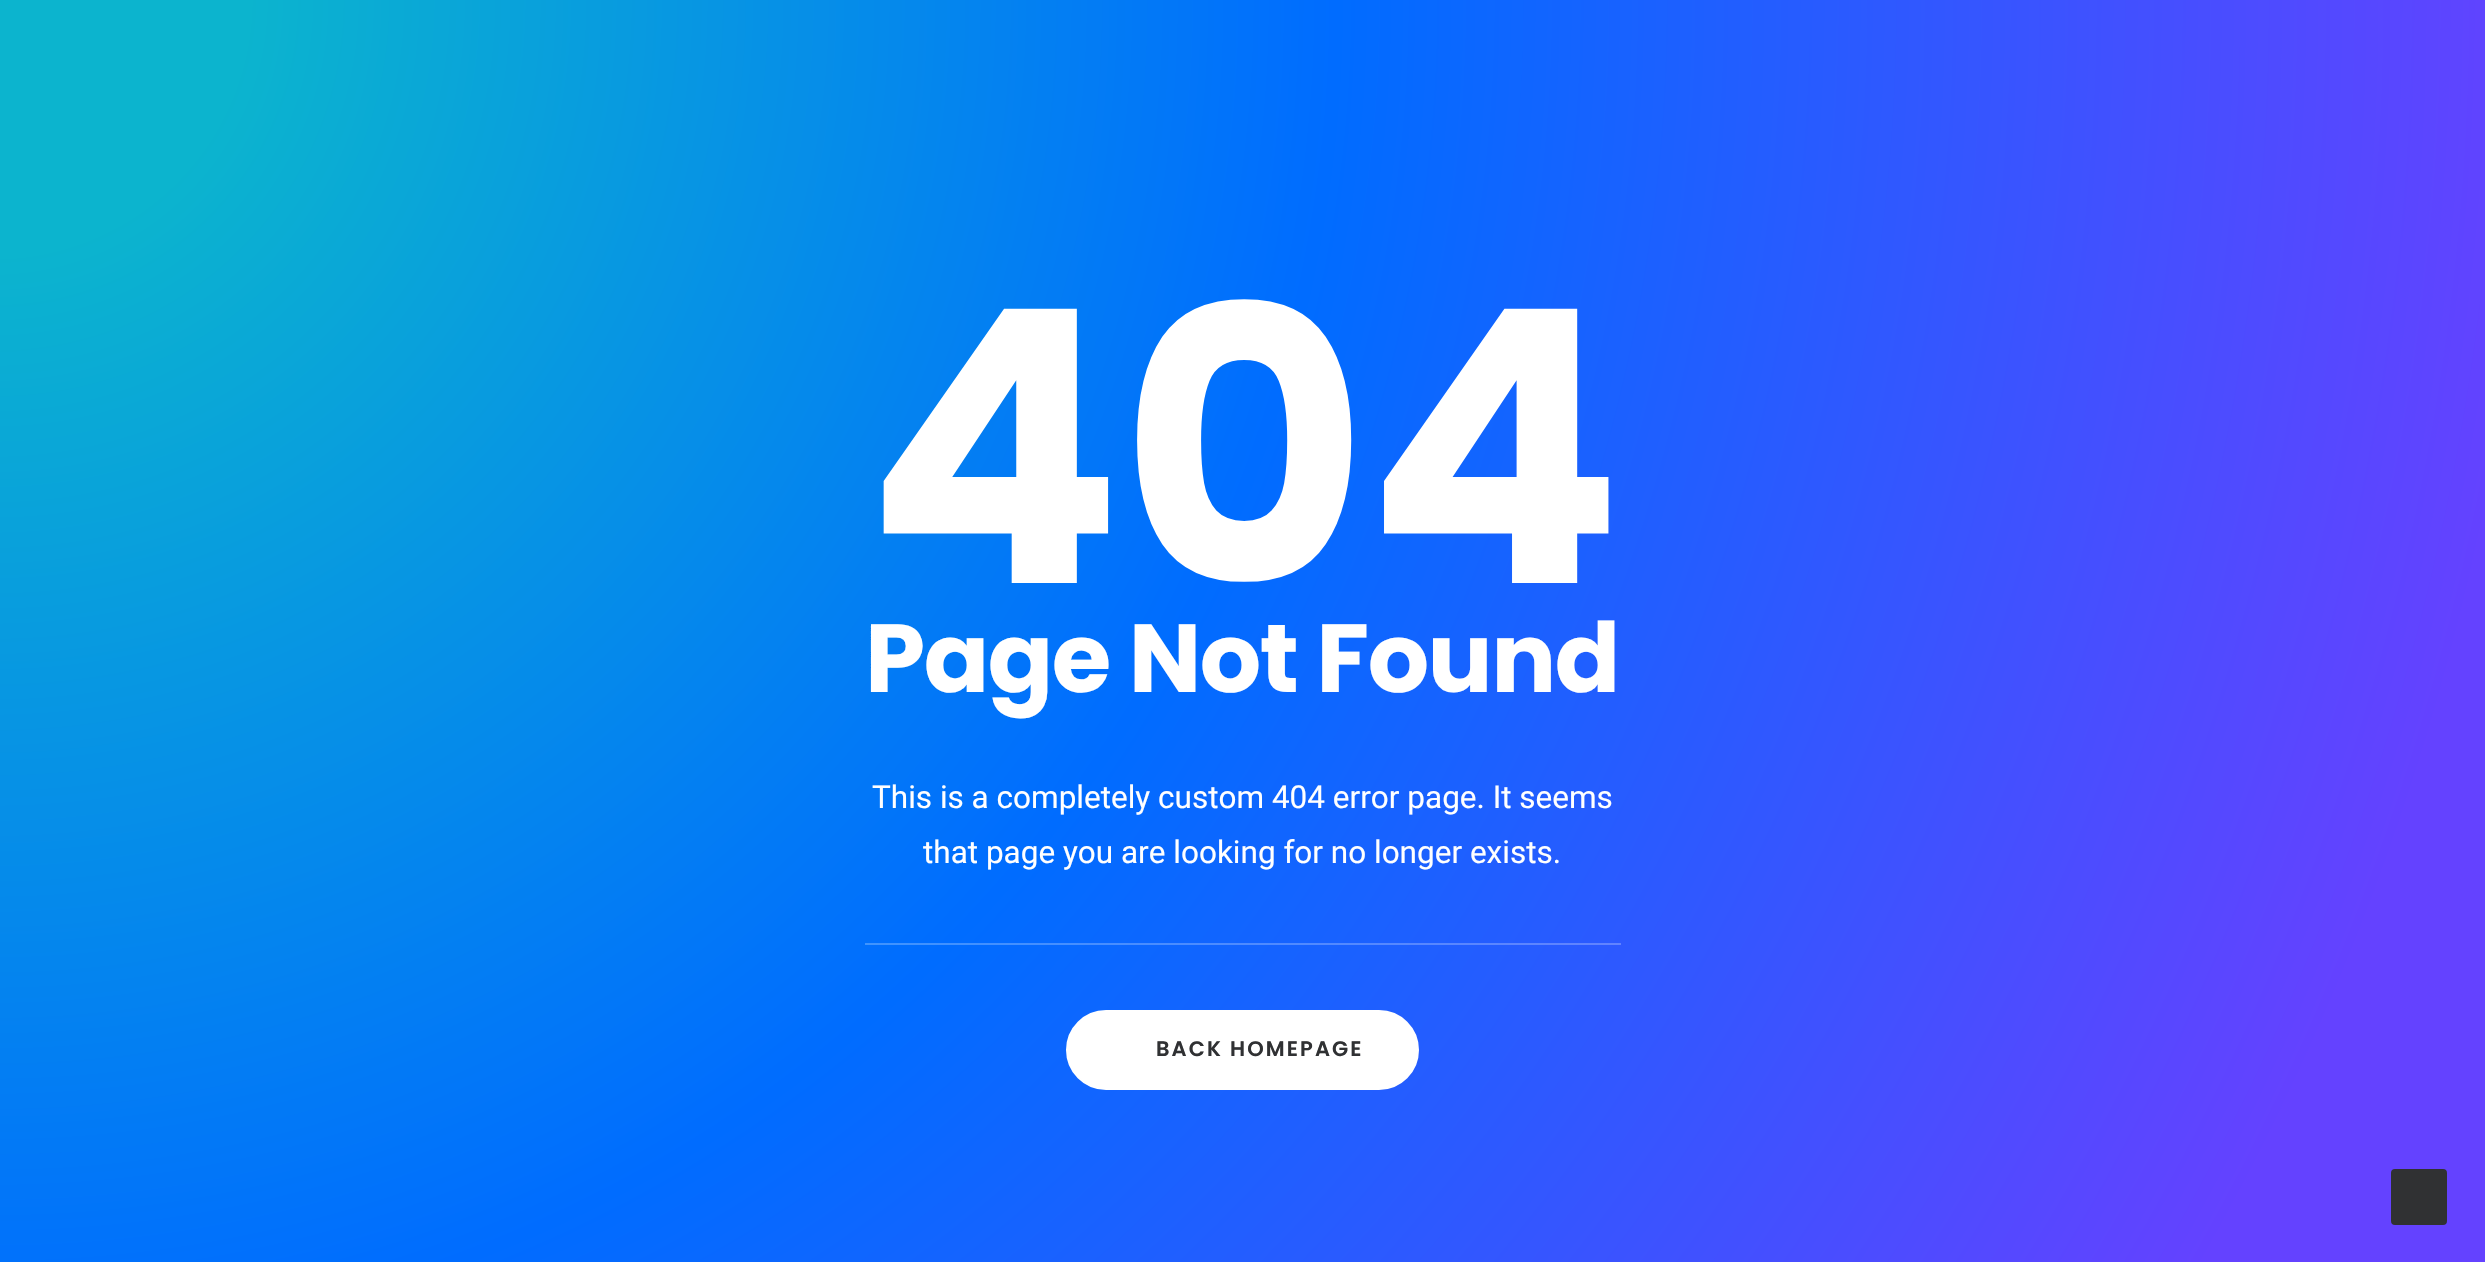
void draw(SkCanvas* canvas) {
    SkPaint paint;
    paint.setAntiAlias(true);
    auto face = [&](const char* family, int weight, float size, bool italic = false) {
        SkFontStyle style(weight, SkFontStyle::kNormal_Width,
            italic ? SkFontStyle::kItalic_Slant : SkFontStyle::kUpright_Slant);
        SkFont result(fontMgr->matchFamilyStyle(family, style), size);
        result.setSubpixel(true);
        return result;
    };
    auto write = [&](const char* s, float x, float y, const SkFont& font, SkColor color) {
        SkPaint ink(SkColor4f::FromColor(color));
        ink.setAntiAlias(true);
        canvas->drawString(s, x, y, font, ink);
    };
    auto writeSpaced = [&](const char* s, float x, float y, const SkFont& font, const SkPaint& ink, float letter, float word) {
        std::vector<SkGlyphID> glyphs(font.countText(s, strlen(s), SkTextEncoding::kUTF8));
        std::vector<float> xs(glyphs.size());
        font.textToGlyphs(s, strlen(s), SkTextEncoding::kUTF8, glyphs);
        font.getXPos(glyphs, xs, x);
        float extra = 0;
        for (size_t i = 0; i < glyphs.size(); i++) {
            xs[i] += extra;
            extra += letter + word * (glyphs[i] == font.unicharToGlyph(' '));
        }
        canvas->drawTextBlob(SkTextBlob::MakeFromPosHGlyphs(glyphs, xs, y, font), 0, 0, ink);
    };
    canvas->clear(SK_ColorWHITE);
    {
        const SkColor colors[] = {SkColorSetRGB(12, 180, 206), SkColorSetRGB(0, 108, 255), SkColorSetRGB(100, 66, 255)};
        const float stops[] = {0.09f, 0.48f, 0.91f};
        paint.setShader(SkGradientShader::MakeRadial({-7, 0}, 2800, colors, stops, 3, SkTileMode::kClamp));
        paint.setAlpha(255);
    }
    canvas->drawRect(SkRect::MakeXYWH(0, 0, 2485, 1262), paint);
    {
        const SkColor colors[] = {SkColorSetRGB(73, 199, 218), SkColorSetRGB(64, 145, 255), SkColorSetRGB(139, 113, 255)};
        const float stops[] = {0.09f, 0.48f, 0.91f};
        paint.setShader(SkGradientShader::MakeRadial({-7, 0}, 2800, colors, stops, 3, SkTileMode::kClamp));
        paint.setAlpha(255);
    }
    canvas->drawRect(SkRect::MakeXYWH(865, 943, 756, 2), paint);
    auto kFont1 = face("Poppins", 700, 381);
    paint.setShader(nullptr);
    paint.setColor(SK_ColorWHITE);
    writeSpaced("404", 865, 583, kFont1, paint, -3, 0);
    auto kFont2 = face("Poppins", 700, 96.5f);
    writeSpaced("Page Not Found", 865, 692, kFont2, paint, -1.5f, 0);
    auto kFont3 = face("Roboto", 400, 31.5f);
    write("This is a completely custom 404 error page. It seems", 872, 808, kFont3, SK_ColorWHITE);
    write("that page you are looking for no longer exists.", 923, 863, kFont3, SK_ColorWHITE);
    canvas->drawRoundRect(SkRect::MakeXYWH(1067, 1011, 351, 78), 39, 39, paint);
    paint.setStyle(SkPaint::kStroke_Style);
    paint.setStrokeWidth(2);
    canvas->drawRoundRect(SkRect::MakeXYWH(1067, 1011, 351, 78), 39, 39, paint);
    auto kFont4 = face("Poppins", 600, 21);
    paint.setStyle(SkPaint::kFill_Style);
    paint.setColor(SkColorSetRGB(48, 49, 51));
    writeSpaced("BACK HOMEPAGE", 1156, 1056, kFont4, paint, 2.1f, 0);
    canvas->drawRoundRect(SkRect::MakeXYWH(2392, 1170, 54, 54), 3, 3, paint);
    paint.setStyle(SkPaint::kStroke_Style);
    canvas->drawRoundRect(SkRect::MakeXYWH(2392, 1170, 54, 54), 3, 3, paint);
}
